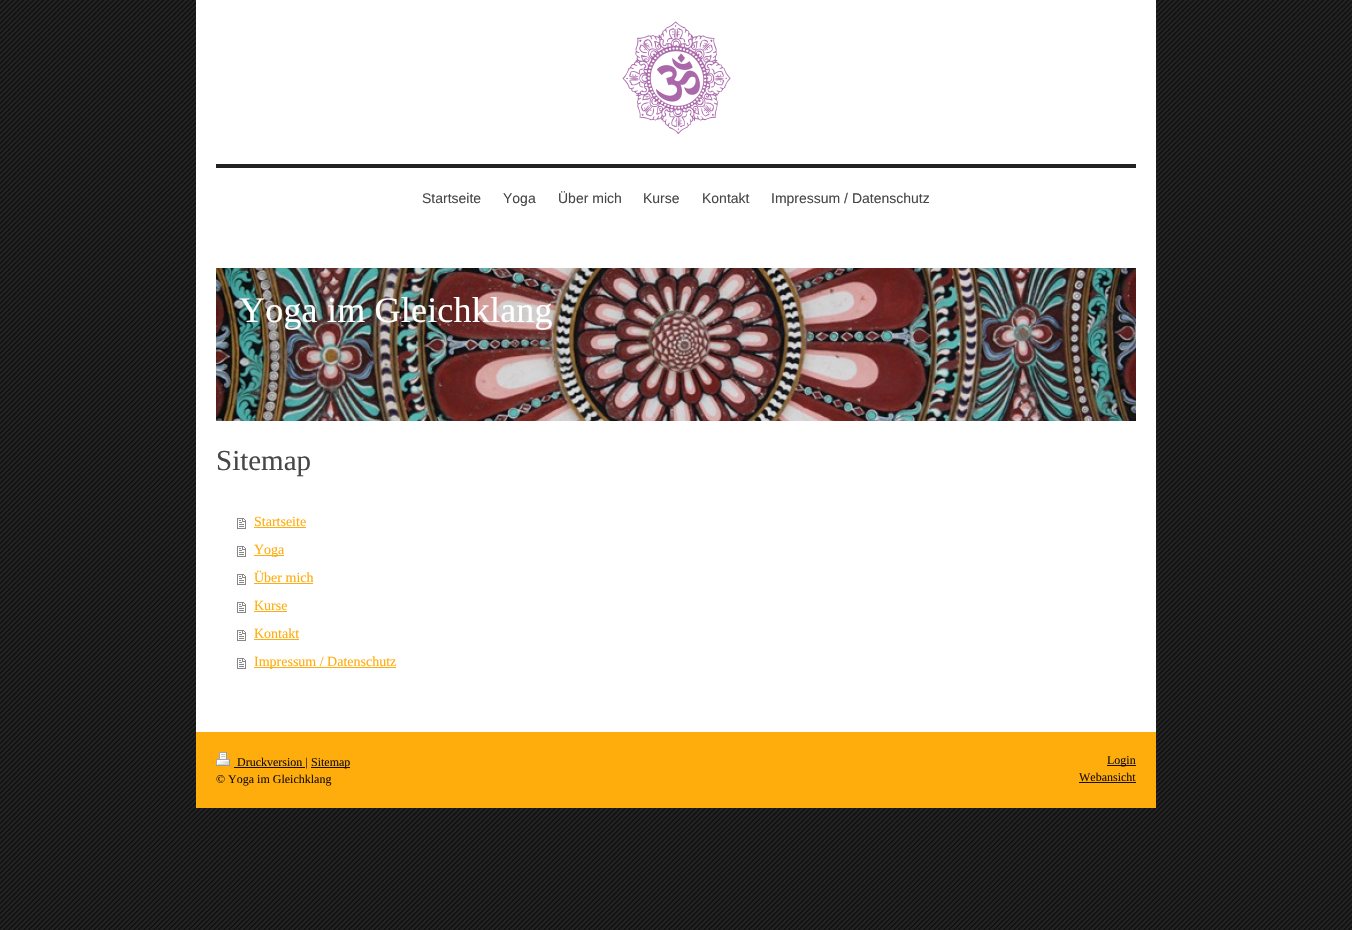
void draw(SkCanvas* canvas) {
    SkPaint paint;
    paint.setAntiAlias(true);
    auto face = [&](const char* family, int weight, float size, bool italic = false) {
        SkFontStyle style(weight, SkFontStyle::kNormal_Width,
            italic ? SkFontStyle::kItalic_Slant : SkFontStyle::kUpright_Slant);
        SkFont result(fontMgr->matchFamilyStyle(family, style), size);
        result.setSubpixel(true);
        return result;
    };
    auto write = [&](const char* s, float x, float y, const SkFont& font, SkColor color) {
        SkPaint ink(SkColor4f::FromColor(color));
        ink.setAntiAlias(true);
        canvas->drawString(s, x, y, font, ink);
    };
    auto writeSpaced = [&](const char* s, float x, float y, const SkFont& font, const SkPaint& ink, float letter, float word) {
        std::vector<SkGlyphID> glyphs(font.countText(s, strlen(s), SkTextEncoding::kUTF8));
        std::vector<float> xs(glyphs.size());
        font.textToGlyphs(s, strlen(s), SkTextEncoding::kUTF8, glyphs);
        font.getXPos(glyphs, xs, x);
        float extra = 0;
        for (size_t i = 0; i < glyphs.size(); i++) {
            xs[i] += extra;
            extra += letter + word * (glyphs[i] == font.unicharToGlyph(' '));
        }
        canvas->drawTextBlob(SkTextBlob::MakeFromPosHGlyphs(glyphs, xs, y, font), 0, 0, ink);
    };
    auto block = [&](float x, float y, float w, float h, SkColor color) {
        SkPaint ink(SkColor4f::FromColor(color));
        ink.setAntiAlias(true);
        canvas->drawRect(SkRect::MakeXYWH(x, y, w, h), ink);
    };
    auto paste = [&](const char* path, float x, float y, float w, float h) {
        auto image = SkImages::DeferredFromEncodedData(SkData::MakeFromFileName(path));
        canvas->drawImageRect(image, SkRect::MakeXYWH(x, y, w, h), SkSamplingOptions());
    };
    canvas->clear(SkColorSetRGB(34, 34, 34));
    paste("pic1.png", 0, 0, 1352, 930);
    block(196, 0, 960, 732, SK_ColorWHITE);
    paste("pic2.png", 622, 21, 109, 113);
    block(216, 164, 920, 4, SkColorSetRGB(34, 34, 34));
    auto kFont1 = face("Liberation Sans", 400, 14);
    write("Startseite", 422, 203, kFont1, SkColorSetRGB(71, 71, 71));
    write("Yoga", 503, 203, kFont1, SkColorSetRGB(71, 71, 71));
    write("Über mich", 558, 203, kFont1, SkColorSetRGB(71, 71, 71));
    write("Kurse", 643, 203, kFont1, SkColorSetRGB(71, 71, 71));
    write("Kontakt", 702, 203, kFont1, SkColorSetRGB(71, 71, 71));
    write("Impressum / Datenschutz", 771, 203, kFont1, SkColorSetRGB(71, 71, 71));
    paste("pic3.png", 216, 268, 920, 153);
    auto kFont2 = face("Liberation Serif", 400, 36);
    paint.setColor(SK_ColorWHITE);
    writeSpaced("Yoga im Gleichklang", 239, 322, kFont2, paint, 0.2f, 0);
    auto kFont3 = face("Liberation Serif", 400, 29);
    write("Sitemap", 216, 470, kFont3, SkColorSetRGB(71, 71, 71));
    paste("pic4.png", 237, 518, 9, 11);
    auto kFont4 = face("Liberation Serif", 400, 14);
    write("Startseite", 254, 526, kFont4, SkColorSetRGB(255, 172, 13));
    block(254, 527, 52, 1, SkColorSetRGB(255, 172, 13));
    paste("pic4.png", 237, 546, 9, 11);
    block(254, 555, 30, 1, SkColorSetRGB(255, 172, 13));
    write("Yoga", 254, 554, kFont4, SkColorSetRGB(255, 172, 13));
    paste("pic4.png", 237, 574, 9, 11);
    write("Über mich", 254, 582, kFont4, SkColorSetRGB(255, 172, 13));
    block(254, 583, 59, 1, SkColorSetRGB(255, 172, 13));
    paste("pic4.png", 237, 602, 9, 11);
    write("Kurse", 254, 610, kFont4, SkColorSetRGB(255, 172, 13));
    block(254, 611, 33, 1, SkColorSetRGB(255, 172, 13));
    paste("pic4.png", 237, 630, 9, 11);
    write("Kontakt", 254, 638, kFont4, SkColorSetRGB(255, 172, 13));
    block(254, 639, 45, 1, SkColorSetRGB(255, 172, 13));
    paste("pic4.png", 237, 658, 9, 11);
    block(254, 667, 142, 1, SkColorSetRGB(255, 172, 13));
    write("Impressum / Datenschutz", 254, 666, kFont4, SkColorSetRGB(255, 172, 13));
    block(196, 732, 960, 76, SkColorSetRGB(255, 172, 13));
    paste("pic5.png", 216, 752, 14, 14);
    block(234, 767, 71, 1, SkColorSetRGB(26, 17, 1));
    auto kFont5 = face("Liberation Serif", 400, 12);
    write("Druckversion |", 237, 766, kFont5, SkColorSetRGB(26, 17, 1));
    block(311, 767, 39, 1, SkColorSetRGB(26, 17, 1));
    write("Sitemap", 311, 766, kFont5, SkColorSetRGB(26, 17, 1));
    write("© Yoga im Gleichklang", 216, 783, kFont5, SkColorSetRGB(26, 17, 1));
    block(1107, 765, 29, 1, SkColorSetRGB(26, 17, 1));
    write("Login", 1107, 764, kFont5, SkColorSetRGB(26, 17, 1));
    write("Webansicht", 1079, 781, kFont5, SkColorSetRGB(26, 17, 1));
    block(1079, 782, 57, 1, SkColorSetRGB(26, 17, 1));
}
